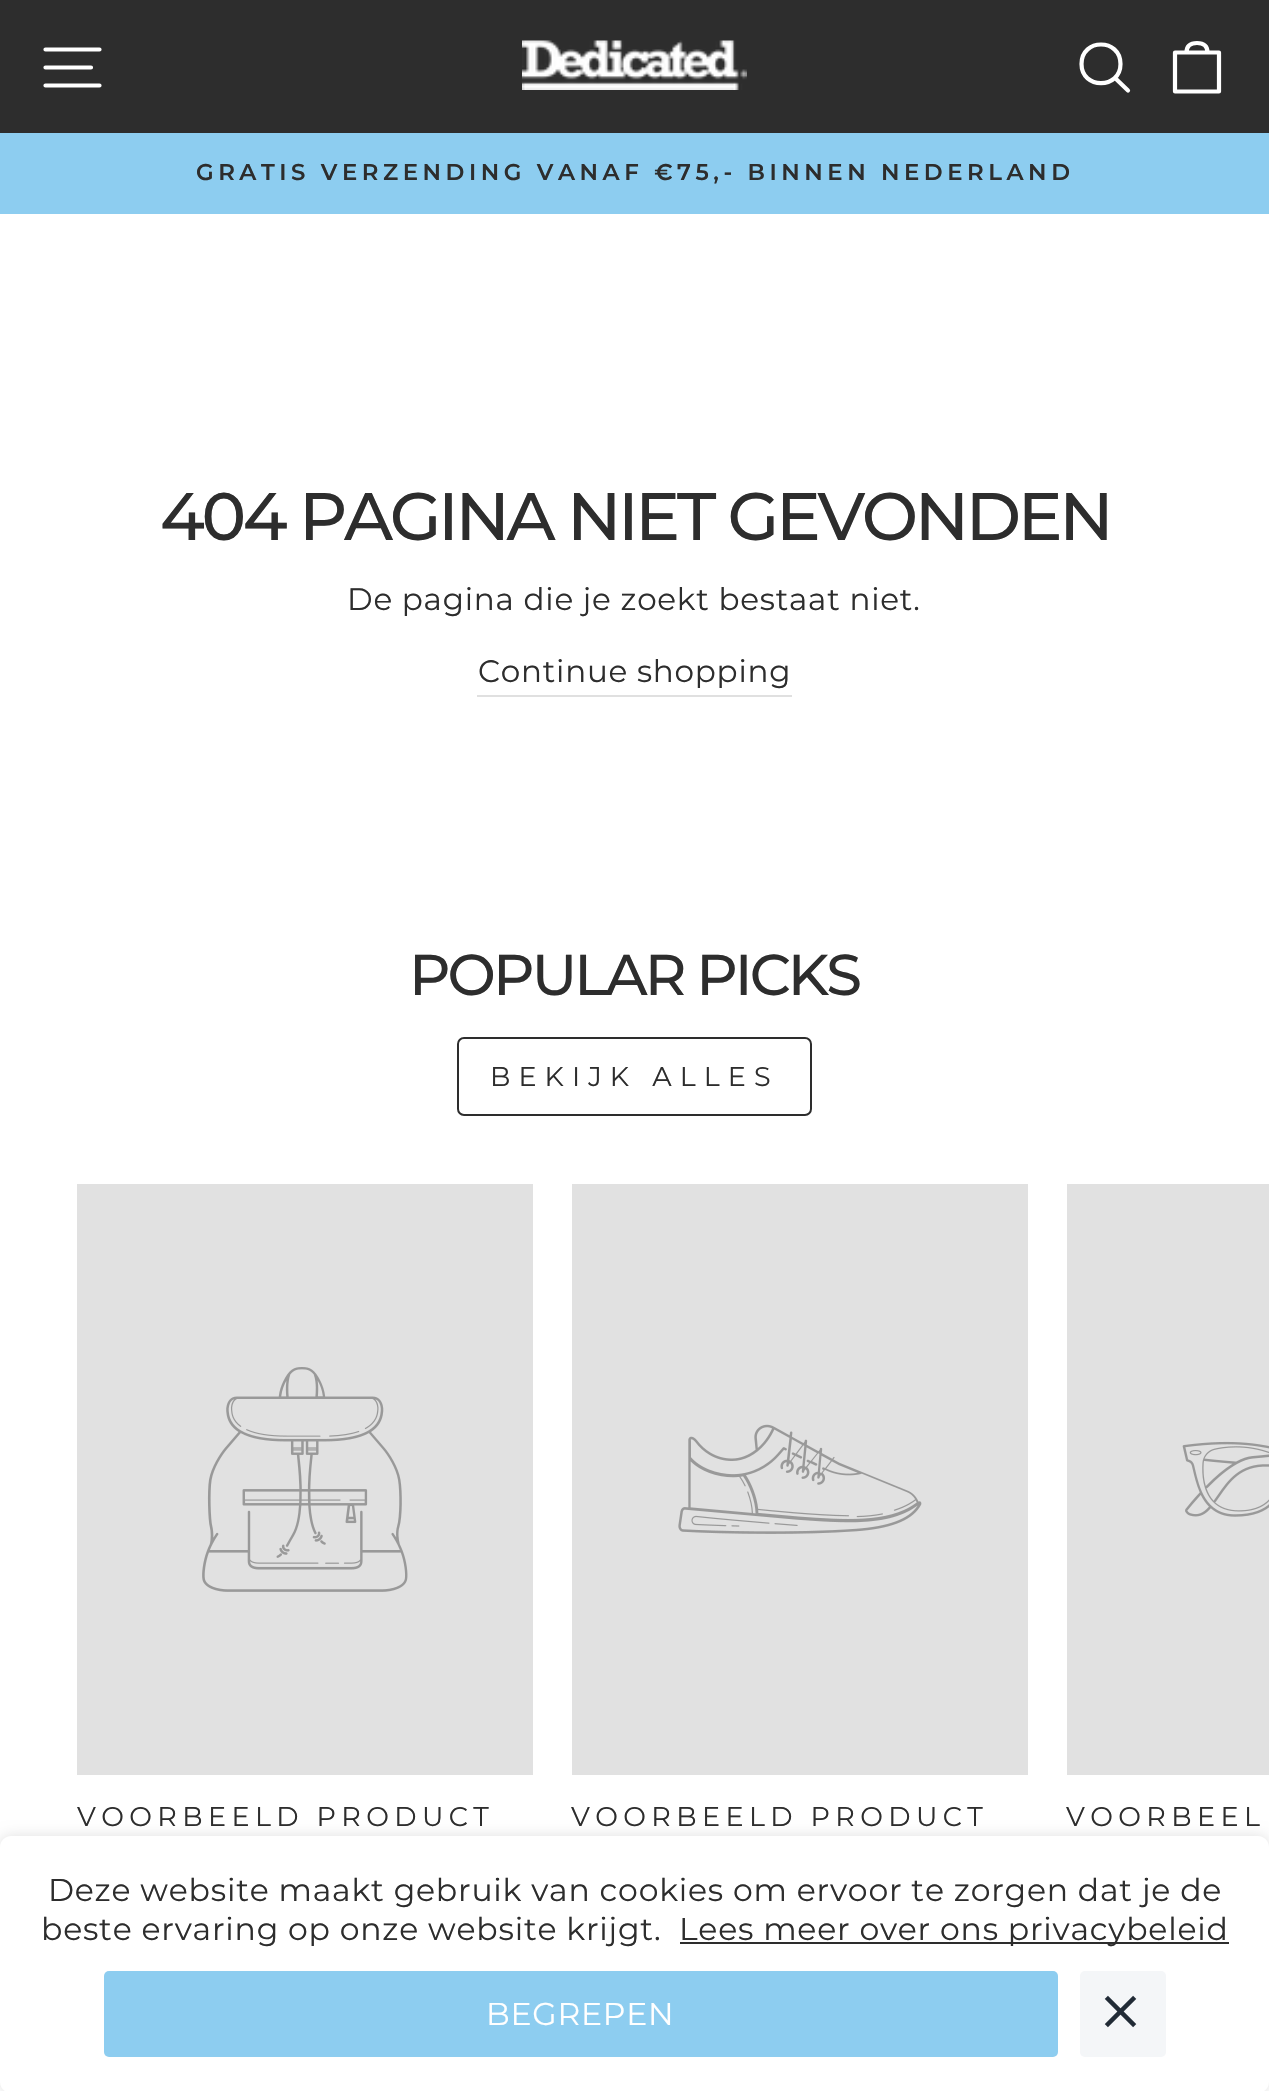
void draw(SkCanvas* canvas) {
    SkPaint paint;
    paint.setAntiAlias(true);
    auto face = [&](const char* family, int weight, float size, bool italic = false) {
        SkFontStyle style(weight, SkFontStyle::kNormal_Width,
            italic ? SkFontStyle::kItalic_Slant : SkFontStyle::kUpright_Slant);
        SkFont result(fontMgr->matchFamilyStyle(family, style), size);
        result.setSubpixel(true);
        return result;
    };
    auto writeSpaced = [&](const char* s, float x, float y, const SkFont& font, const SkPaint& ink, float letter, float word) {
        std::vector<SkGlyphID> glyphs(font.countText(s, strlen(s), SkTextEncoding::kUTF8));
        std::vector<float> xs(glyphs.size());
        font.textToGlyphs(s, strlen(s), SkTextEncoding::kUTF8, glyphs);
        font.getXPos(glyphs, xs, x);
        float extra = 0;
        for (size_t i = 0; i < glyphs.size(); i++) {
            xs[i] += extra;
            extra += letter + word * (glyphs[i] == font.unicharToGlyph(' '));
        }
        canvas->drawTextBlob(SkTextBlob::MakeFromPosHGlyphs(glyphs, xs, y, font), 0, 0, ink);
    };
    auto block = [&](float x, float y, float w, float h, SkColor color) {
        SkPaint ink(SkColor4f::FromColor(color));
        ink.setAntiAlias(true);
        canvas->drawRect(SkRect::MakeXYWH(x, y, w, h), ink);
    };
    auto card = [&](float x, float y, float w, float h, float radius, SkColor color) {
        SkPaint ink(SkColor4f::FromColor(color));
        ink.setAntiAlias(true);
        canvas->drawRoundRect(SkRect::MakeXYWH(x, y, w, h), radius, radius, ink);
    };
    auto paste = [&](const char* path, float x, float y, float w, float h) {
        auto image = SkImages::DeferredFromEncodedData(SkData::MakeFromFileName(path));
        canvas->drawImageRect(image, SkRect::MakeXYWH(x, y, w, h), SkSamplingOptions());
    };
    canvas->clear(SK_ColorWHITE);
    block(0, 0, 1269, 133, SkColorSetRGB(45, 45, 45));
    paint.setStyle(SkPaint::kStroke_Style);
    paint.setStrokeWidth(4.2f);
    paint.setStrokeCap(SkPaint::kRound_Cap);
    paint.setStrokeJoin(SkPaint::kRound_Join);
    paint.setColor(SK_ColorWHITE);
    canvas->drawPath(SkPathBuilder().moveTo(45.5f, 49.5f).lineTo(99.5f, 49.5f).moveTo(45.5f, 67.5f).lineTo(91, 67.5f).moveTo(45.5f, 85.5f).lineTo(99.5f, 85.5f).detach(), paint);
    paste("pic1.png", 522, 40, 225, 50);
    canvas->drawPath(SkPathBuilder().moveTo(1120.5f, 64).cubicTo(1120.5f, 89.5f, 1081.5f, 89.5f, 1081.5f, 64).cubicTo(1081.5f, 38, 1120.5f, 38, 1120.5f, 64).close().moveTo(1128, 90.5f).lineTo(1115, 78).detach(), paint);
    canvas->drawPath(SkPathBuilder().moveTo(1175, 52.5f).lineTo(1219, 52.5f).lineTo(1219, 91.5f).lineTo(1175, 91.5f).close().moveTo(1186.5f, 52.5f).cubicTo(1186.5f, 45, 1191.5f, 43, 1197, 43).cubicTo(1202.5f, 43, 1207.5f, 45, 1207.5f, 52.5f).detach(), paint);
    block(0, 133, 1269, 81, SkColorSetRGB(141, 205, 240));
    auto kFont1 = face("Montserrat", 600, 22.8f);
    paint.setStyle(SkPaint::kFill_Style);
    paint.setColor(SkColorSetRGB(45, 45, 45));
    writeSpaced("GRATIS VERZENDING VANAF €75,- BINNEN NEDERLAND", 196, 180, kFont1, paint, 4.55f, 0);
    auto kFont2 = face("Montserrat", 500, 67);
    writeSpaced("404 PAGINA NIET GEVONDEN", 160, 540, kFont2, paint, -3.35f, 0);
    auto kFont3 = face("Montserrat", 400, 31);
    writeSpaced("De pagina die je zoekt bestaat niet.", 347, 610, kFont3, paint, 0.78f, 0);
    block(477, 695, 315, 2, SkColorSetRGB(224, 224, 224));
    writeSpaced("Continue shopping", 478, 682, kFont3, paint, 0.78f, 0);
    auto kFont4 = face("Montserrat", 500, 57.5f);
    writeSpaced("POPULAR PICKS", 409, 995, kFont4, paint, -2.9f, 0);
    paint.setStyle(SkPaint::kStroke_Style);
    paint.setStrokeWidth(2);
    paint.setStrokeCap(SkPaint::kButt_Cap);
    paint.setStrokeJoin(SkPaint::kMiter_Join);
    canvas->drawRoundRect(SkRect::MakeXYWH(458, 1038, 353, 77), 6, 6, paint);
    auto kFont5 = face("Montserrat", 400, 27);
    paint.setStyle(SkPaint::kFill_Style);
    writeSpaced("BEKIJK ALLES", 490, 1086, kFont5, paint, 8.1f, 0);
    block(77, 1184, 456, 591, SkColorSetRGB(225, 225, 225));
    paste("pic2.png", 202, 1367, 206, 225);
    writeSpaced("VOORBEELD PRODUCT", 77, 1826, kFont5, paint, 5.4f, 0);
    block(572, 1184, 456, 591, SkColorSetRGB(225, 225, 225));
    paste("pic3.png", 678, 1424, 244, 110);
    writeSpaced("VOORBEELD PRODUCT", 571, 1826, kFont5, paint, 5.4f, 0);
    block(1067, 1184, 202, 591, SkColorSetRGB(225, 225, 225));
    paste("pic4.png", 1182, 1441, 87, 76);
    writeSpaced("VOORBEEL", 1066, 1826, kFont5, paint, 5.4f, 0);
    canvas->save();
    canvas->clipPath(SkPathBuilder(SkPathFillType::kEvenOdd).moveTo(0, 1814).lineTo(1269, 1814).lineTo(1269, 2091).lineTo(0, 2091).close().moveTo(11, 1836).lineTo(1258, 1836).cubicTo(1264, 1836, 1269, 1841, 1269, 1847).lineTo(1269, 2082).cubicTo(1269, 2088, 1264, 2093, 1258, 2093).lineTo(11, 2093).cubicTo(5, 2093, 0, 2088, 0, 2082).lineTo(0, 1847).cubicTo(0, 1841, 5, 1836, 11, 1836).close().detach(), true);
    paint.setColor(SkColorSetARGB(31, 0, 0, 0));
    paint.setMaskFilter(SkMaskFilter::MakeBlur(kNormal_SkBlurStyle, 7));
    canvas->drawRoundRect(SkRect::MakeXYWH(0, 1836, 1269, 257), 11, 11, paint);
    paint.setMaskFilter(nullptr);
    canvas->restore();
    auto kFont6 = face("Montserrat", 400, 31.5f);
    paint.setColor(SkColorSetRGB(45, 45, 45));
    writeSpaced("Deze website maakt gebruik van cookies om ervoor te zorgen dat je de", 48, 1901, kFont6, paint, 0.78f, 0);
    writeSpaced("beste ervaring op onze website krijgt.", 41, 1940, kFont6, paint, 0.78f, 0);
    block(680, 1942, 549, 2, SkColorSetRGB(45, 45, 45));
    writeSpaced("Lees meer over ons privacybeleid", 679, 1940, kFont6, paint, 0.78f, 0);
    card(104, 1971, 954, 86, 5, SkColorSetRGB(141, 205, 240));
    paint.setColor(SK_ColorWHITE);
    writeSpaced("BEGREPEN", 486, 2025, kFont6, paint, 0.75f, 0);
    card(1080, 1971, 86, 86, 5, SkColorSetRGB(244, 246, 248));
    paste("pic5.png", 1104, 1995, 33, 33);
}
